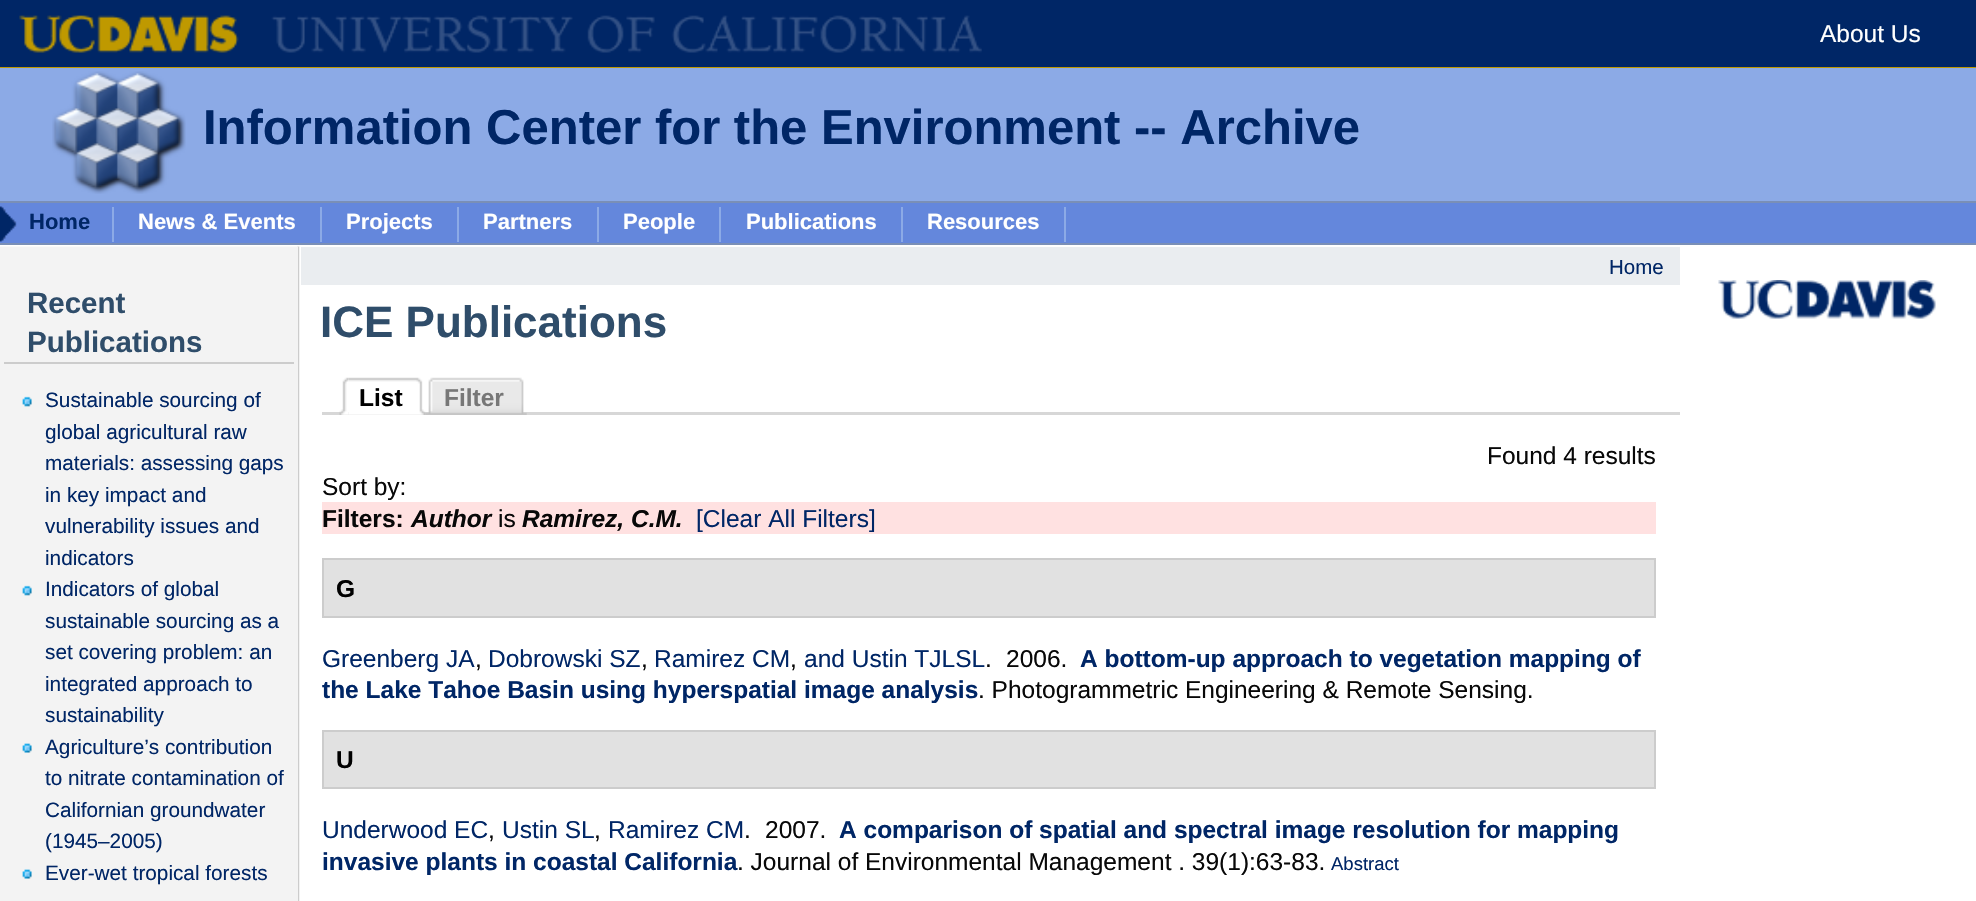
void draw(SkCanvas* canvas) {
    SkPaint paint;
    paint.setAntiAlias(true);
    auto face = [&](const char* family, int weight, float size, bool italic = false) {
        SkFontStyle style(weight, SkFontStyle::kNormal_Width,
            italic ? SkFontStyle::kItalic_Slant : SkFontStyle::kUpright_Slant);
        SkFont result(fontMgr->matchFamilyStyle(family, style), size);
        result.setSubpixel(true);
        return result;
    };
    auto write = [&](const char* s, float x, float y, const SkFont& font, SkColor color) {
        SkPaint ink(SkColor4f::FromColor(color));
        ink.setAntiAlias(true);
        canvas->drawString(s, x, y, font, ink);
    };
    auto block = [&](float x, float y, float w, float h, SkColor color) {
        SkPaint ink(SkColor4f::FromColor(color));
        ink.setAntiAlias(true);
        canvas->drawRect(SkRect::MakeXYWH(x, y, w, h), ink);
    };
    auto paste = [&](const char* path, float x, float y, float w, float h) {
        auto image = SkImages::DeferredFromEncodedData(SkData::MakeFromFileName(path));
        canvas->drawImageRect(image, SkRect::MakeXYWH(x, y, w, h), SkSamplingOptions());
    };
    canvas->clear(SK_ColorWHITE);
    block(0, 0, 1976, 67, SkColorSetRGB(0, 38, 102));
    paste("pic1.png", 19, 15, 963, 38);
    block(0, 67, 1976, 1, SkColorSetRGB(190, 153, 0));
    auto kFont1 = face("Liberation Sans", 400, 24.5f);
    write("About Us", 1820, 42, kFont1, SK_ColorWHITE);
    block(0, 68, 1976, 133, SkColorSetRGB(140, 170, 230));
    paste("pic2.png", 52, 71, 134, 123);
    auto kFont2 = face("Liberation Sans", 700, 49);
    write("Information Center for the Environment -- Archive", 203, 144, kFont2, SkColorSetRGB(0, 38, 102));
    block(0, 203, 1976, 40, SkColorSetRGB(100, 135, 220));
    block(0, 201, 1976, 2, SkColorSetRGB(122, 143, 182));
    block(0, 243, 1976, 2, SkColorSetRGB(122, 143, 182));
    paste("pic3.png", 0, 206, 17, 36);
    auto kFont3 = face("Liberation Sans", 700, 22);
    write("Home", 29, 229, kFont3, SkColorSetRGB(0, 38, 102));
    block(112, 207, 2, 35, SkColorSetRGB(140, 170, 230));
    write("News & Events", 138, 229, kFont3, SK_ColorWHITE);
    block(320, 207, 2, 35, SkColorSetRGB(140, 170, 230));
    write("Projects", 346, 229, kFont3, SK_ColorWHITE);
    block(457, 207, 2, 35, SkColorSetRGB(140, 170, 230));
    write("Partners", 483, 229, kFont3, SK_ColorWHITE);
    block(597, 207, 2, 35, SkColorSetRGB(140, 170, 230));
    write("People", 623, 229, kFont3, SK_ColorWHITE);
    block(719, 207, 2, 35, SkColorSetRGB(140, 170, 230));
    write("Publications", 746, 229, kFont3, SK_ColorWHITE);
    block(901, 207, 2, 35, SkColorSetRGB(140, 170, 230));
    write("Resources", 927, 229, kFont3, SK_ColorWHITE);
    block(1064, 207, 2, 35, SkColorSetRGB(140, 170, 230));
    paste("pic6.png", 0, 246, 300, 1);
    paste("pic7.png", 0, 246, 300, 655);
    block(297, 247, 1, 654, SkColorSetRGB(243, 243, 243));
    block(4, 362, 290, 2, SkColorSetRGB(204, 204, 204));
    auto kFont4 = face("Liberation Sans", 700, 29.5f);
    write("Recent", 27, 313, kFont4, SkColorSetRGB(47, 77, 106));
    write("Publications", 27, 352, kFont4, SkColorSetRGB(47, 77, 106));
    paste("pic4.png", 22, 396, 10, 11);
    auto kFont5 = face("Liberation Sans", 400, 20.75f);
    write("Sustainable sourcing of", 45, 407, kFont5, SkColorSetRGB(0, 38, 102));
    write("global agricultural raw", 45, 439, kFont5, SkColorSetRGB(0, 38, 102));
    write("materials: assessing gaps", 45, 470, kFont5, SkColorSetRGB(0, 38, 102));
    write("in key impact and", 45, 502, kFont5, SkColorSetRGB(0, 38, 102));
    write("vulnerability issues and", 45, 533, kFont5, SkColorSetRGB(0, 38, 102));
    write("indicators", 45, 565, kFont5, SkColorSetRGB(0, 38, 102));
    paste("pic4.png", 22, 585, 10, 11);
    write("Indicators of global", 45, 596, kFont5, SkColorSetRGB(0, 38, 102));
    write("sustainable sourcing as a", 45, 628, kFont5, SkColorSetRGB(0, 38, 102));
    write("set covering problem: an", 45, 659, kFont5, SkColorSetRGB(0, 38, 102));
    write("integrated approach to", 45, 691, kFont5, SkColorSetRGB(0, 38, 102));
    write("sustainability", 45, 722, kFont5, SkColorSetRGB(0, 38, 102));
    paste("pic5.png", 22, 743, 10, 10);
    write("Agriculture’s contribution", 45, 754, kFont5, SkColorSetRGB(0, 38, 102));
    write("to nitrate contamination of", 45, 785, kFont5, SkColorSetRGB(0, 38, 102));
    write("Californian groundwater", 45, 817, kFont5, SkColorSetRGB(0, 38, 102));
    write("(1945–2005)", 45, 848, kFont5, SkColorSetRGB(0, 38, 102));
    paste("pic5.png", 22, 869, 10, 10);
    write("Ever-wet tropical forests", 45, 880, kFont5, SkColorSetRGB(0, 38, 102));
    block(301, 247, 1379, 38, SkColorSetRGB(234, 237, 240));
    auto kFont6 = face("Liberation Sans", 400, 20.5f);
    write("Home", 1609, 274, kFont6, SkColorSetRGB(0, 38, 102));
    auto kFont7 = face("Liberation Sans", 700, 44);
    write("ICE Publications", 320, 337, kFont7, SkColorSetRGB(47, 77, 106));
    block(322, 412, 1358, 3, SkColorSetRGB(215, 215, 215));
    paste("pic8.png", 339, 377, 10, 38);
    paste("pic9.png", 348, 377, 78, 38);
    auto kFont8 = face("Liberation Sans", 700, 24.5f);
    write("List", 359, 406, kFont8, SK_ColorBLACK);
    paste("pic10.png", 425, 377, 9, 38);
    paste("pic11.png", 434, 377, 93, 38);
    write("Filter", 444, 406, kFont8, SkColorSetRGB(119, 119, 119));
    write("Found 4 results", 1487, 464, kFont1, SkColorSetRGB(8, 8, 8));
    write("Sort by:", 322, 495, kFont1, SkColorSetRGB(8, 8, 8));
    block(322, 502, 1334, 32, SkColorSetRGB(255, 225, 225));
    write("Filters:", 322, 527, kFont8, SkColorSetRGB(8, 8, 8));
    auto kFont9 = face("Liberation Sans", 700, 24.5f, true);
    write("Author", 411, 527, kFont9, SkColorSetRGB(8, 8, 8));
    write("is", 498, 527, kFont1, SkColorSetRGB(8, 8, 8));
    write("Ramirez, C.M.", 522, 527, kFont9, SkColorSetRGB(8, 8, 8));
    write("[Clear All Filters]", 696, 527, kFont1, SkColorSetRGB(0, 38, 102));
    paint.setColor(SkColorSetRGB(225, 225, 225));
    canvas->drawRect(SkRect::MakeXYWH(323, 559, 1332, 58), paint);
    paint.setStyle(SkPaint::kStroke_Style);
    paint.setStrokeWidth(2);
    paint.setColor(SkColorSetRGB(204, 204, 204));
    canvas->drawRect(SkRect::MakeXYWH(323, 559, 1332, 58), paint);
    write("G", 336, 597, kFont8, SK_ColorBLACK);
    write("Greenberg JA", 322, 667, kFont1, SkColorSetRGB(0, 38, 102));
    write(",", 475, 667, kFont1, SkColorSetRGB(8, 8, 8));
    write("Dobrowski SZ", 488, 667, kFont1, SkColorSetRGB(0, 38, 102));
    write(",", 641, 667, kFont1, SkColorSetRGB(8, 8, 8));
    write("Ramirez CM", 654, 667, kFont1, SkColorSetRGB(0, 38, 102));
    write(",", 790, 667, kFont1, SkColorSetRGB(8, 8, 8));
    write("and Ustin TJLSL", 804, 667, kFont1, SkColorSetRGB(0, 38, 102));
    write(".", 985, 667, kFont1, SkColorSetRGB(8, 8, 8));
    write("2006.", 1006, 667, kFont1, SkColorSetRGB(8, 8, 8));
    write("A bottom-up approach to vegetation mapping of", 1080, 667, kFont8, SkColorSetRGB(0, 38, 102));
    write("the Lake Tahoe Basin using hyperspatial image analysis", 322, 698, kFont8, SkColorSetRGB(0, 38, 102));
    write(". Photogrammetric Engineering & Remote Sensing.", 978, 698, kFont1, SkColorSetRGB(8, 8, 8));
    paint.setStyle(SkPaint::kFill_Style);
    paint.setColor(SkColorSetRGB(225, 225, 225));
    canvas->drawRect(SkRect::MakeXYWH(323, 731, 1332, 57), paint);
    paint.setStyle(SkPaint::kStroke_Style);
    paint.setColor(SkColorSetRGB(204, 204, 204));
    canvas->drawRect(SkRect::MakeXYWH(323, 731, 1332, 57), paint);
    write("U", 336, 768, kFont8, SK_ColorBLACK);
    write("Underwood EC", 322, 838, kFont1, SkColorSetRGB(0, 38, 102));
    write(",", 488, 838, kFont1, SkColorSetRGB(8, 8, 8));
    write("Ustin SL", 502, 838, kFont1, SkColorSetRGB(0, 38, 102));
    write(",", 594, 838, kFont1, SkColorSetRGB(8, 8, 8));
    write("Ramirez CM", 608, 838, kFont1, SkColorSetRGB(0, 38, 102));
    write(".", 744, 838, kFont1, SkColorSetRGB(8, 8, 8));
    write("2007.", 765, 838, kFont1, SkColorSetRGB(8, 8, 8));
    write("A comparison of spatial and spectral image resolution for mapping", 839, 838, kFont8, SkColorSetRGB(0, 38, 102));
    write("invasive plants in coastal California", 322, 870, kFont8, SkColorSetRGB(0, 38, 102));
    write(". Journal of Environmental Management . 39(1):63-83.", 737, 870, kFont1, SkColorSetRGB(8, 8, 8));
    auto kFont10 = face("Liberation Sans", 400, 18.5f);
    write("Abstract", 1331, 870, kFont10, SkColorSetRGB(0, 38, 102));
    paste("pic12.png", 1718, 280, 218, 39);
}
